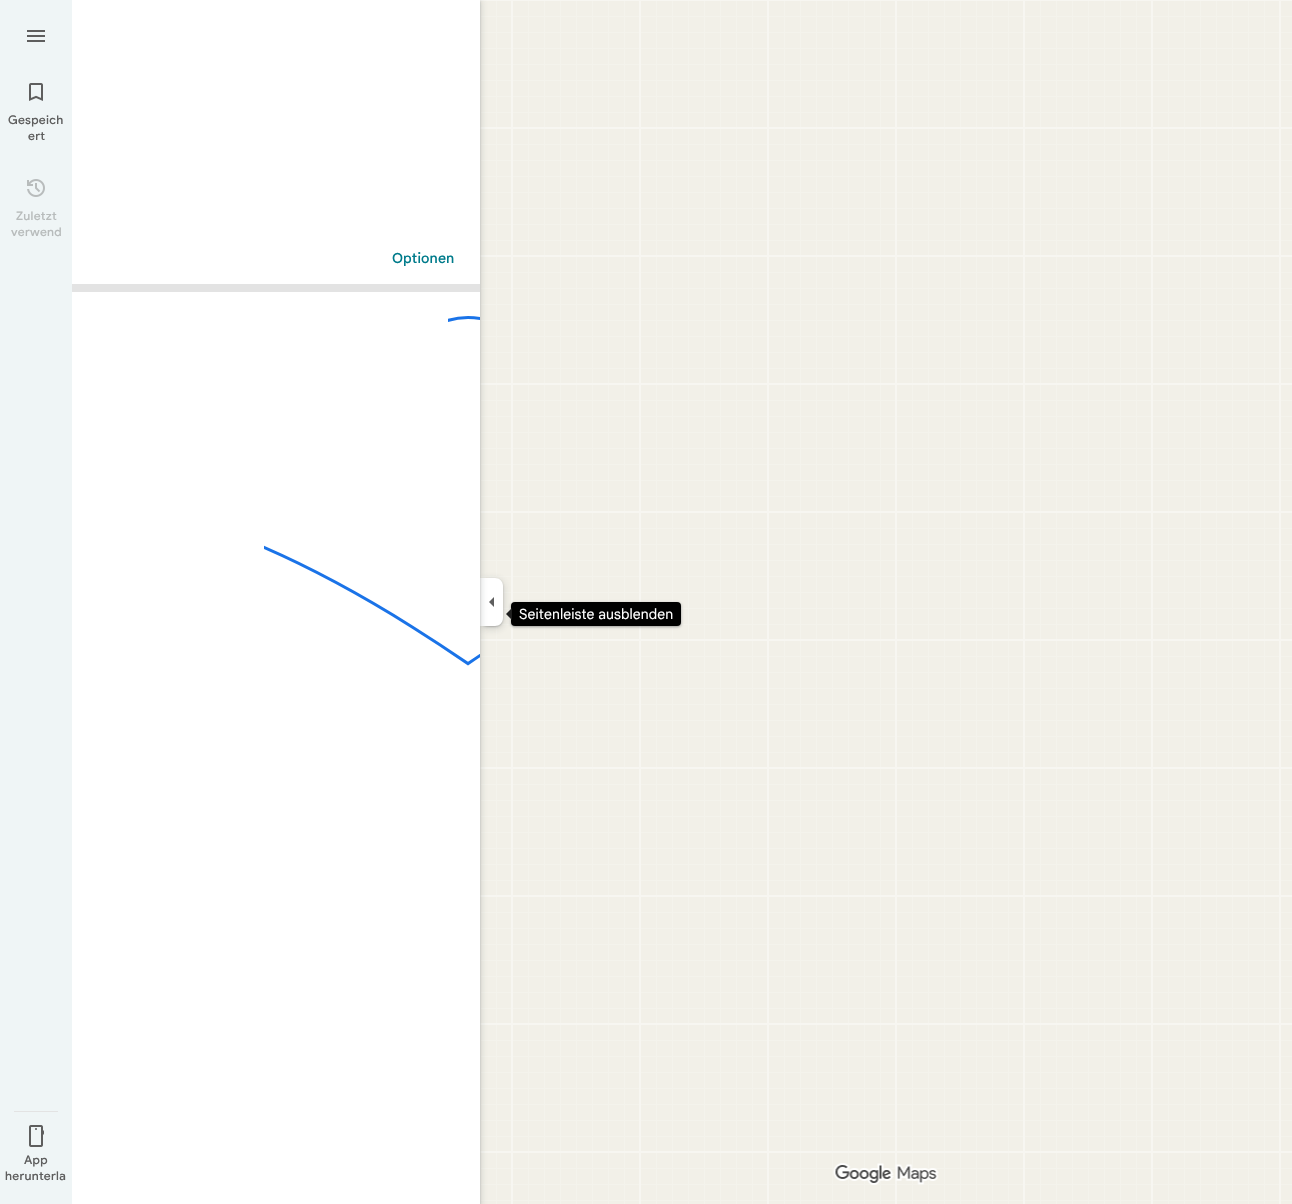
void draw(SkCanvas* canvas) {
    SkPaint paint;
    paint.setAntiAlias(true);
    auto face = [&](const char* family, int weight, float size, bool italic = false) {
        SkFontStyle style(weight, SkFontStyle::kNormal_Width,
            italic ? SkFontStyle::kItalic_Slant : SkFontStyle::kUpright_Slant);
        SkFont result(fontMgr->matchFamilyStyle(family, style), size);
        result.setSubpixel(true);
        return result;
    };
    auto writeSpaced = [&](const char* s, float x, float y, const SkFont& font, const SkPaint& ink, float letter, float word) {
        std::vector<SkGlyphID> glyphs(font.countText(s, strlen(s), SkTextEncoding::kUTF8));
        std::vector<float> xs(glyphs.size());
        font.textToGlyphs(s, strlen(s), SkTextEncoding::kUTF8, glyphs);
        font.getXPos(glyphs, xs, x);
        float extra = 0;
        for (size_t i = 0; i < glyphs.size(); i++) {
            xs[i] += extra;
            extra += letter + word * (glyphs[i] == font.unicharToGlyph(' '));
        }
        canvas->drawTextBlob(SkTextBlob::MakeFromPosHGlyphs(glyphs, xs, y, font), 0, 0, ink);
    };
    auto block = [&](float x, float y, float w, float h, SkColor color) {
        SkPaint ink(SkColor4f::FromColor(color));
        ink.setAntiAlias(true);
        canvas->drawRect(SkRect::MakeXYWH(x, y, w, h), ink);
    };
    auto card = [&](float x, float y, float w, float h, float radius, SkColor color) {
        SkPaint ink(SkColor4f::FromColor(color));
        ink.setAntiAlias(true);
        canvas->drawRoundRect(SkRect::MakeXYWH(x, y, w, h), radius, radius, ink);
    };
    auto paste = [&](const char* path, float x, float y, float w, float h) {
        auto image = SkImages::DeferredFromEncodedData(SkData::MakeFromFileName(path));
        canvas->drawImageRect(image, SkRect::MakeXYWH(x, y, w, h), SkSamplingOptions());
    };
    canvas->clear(SkColorSetRGB(242, 240, 232));
    paste("pic5.png", 480, 0, 812, 1204);
    paint.setColor(SkColorSetARGB(38, 60, 64, 67));
    paint.setMaskFilter(SkMaskFilter::MakeBlur(kNormal_SkBlurStyle, 3));
    canvas->drawRoundRect(SkRect::MakeXYWH(478, 578, 27, 52), 10, 10, paint);
    paint.setMaskFilter(nullptr);
    paint.setColor(SkColorSetARGB(77, 60, 64, 67));
    paint.setMaskFilter(SkMaskFilter::MakeBlur(kNormal_SkBlurStyle, 1));
    canvas->drawRoundRect(SkRect::MakeXYWH(480, 579, 23, 48), 8, 8, paint);
    paint.setMaskFilter(nullptr);
    paint.setColor(SK_ColorWHITE);
    canvas->drawPath(SkPathBuilder().moveTo(480, 578).lineTo(495, 578).cubicTo(499.5f, 578, 503, 581.5f, 503, 586).lineTo(503, 618).cubicTo(503, 622.5f, 499.5f, 626, 495, 626).lineTo(480, 626).close().detach(), paint);
    paint.setColor(SkColorSetRGB(94, 94, 94));
    canvas->drawPath(SkPathBuilder().moveTo(494, 607).lineTo(489, 602).lineTo(494, 597).close().detach(), paint);
    paint.setColor(SkColorSetARGB(38, 60, 64, 67));
    paint.setMaskFilter(SkMaskFilter::MakeBlur(kNormal_SkBlurStyle, 3));
    canvas->drawRect(SkRect::MakeXYWH(70, 0, 412, 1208), paint);
    paint.setMaskFilter(nullptr);
    paint.setColor(SkColorSetARGB(77, 60, 64, 67));
    paint.setMaskFilter(SkMaskFilter::MakeBlur(kNormal_SkBlurStyle, 1));
    canvas->drawRect(SkRect::MakeXYWH(72, 1, 408, 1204), paint);
    paint.setMaskFilter(nullptr);
    block(0, 0, 72, 1204, SkColorSetRGB(239, 245, 246));
    paste("pic1.png", 27, 30, 18, 12);
    paste("pic2.png", 29, 83, 14, 18);
    auto kFont1 = face("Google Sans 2", 500, 12);
    paint.setColor(SkColorSetRGB(94, 94, 94));
    writeSpaced("Gespeich", 8, 124, kFont1, paint, 0.25f, 0);
    writeSpaced("ert", 28, 140, kFont1, paint, 0.25f, 0);
    paste("pic3.png", 27, 179, 18, 18);
    paint.setColor(SkColorSetRGB(184, 188, 188));
    writeSpaced("Zuletzt", 16, 220, kFont1, paint, 0.25f, 0);
    writeSpaced("verwend", 11, 236, kFont1, paint, 0.25f, 0);
    block(14, 1111, 44, 1, SkColorSetRGB(227, 227, 227));
    paste("pic4.png", 29, 1125, 15, 22);
    paint.setColor(SkColorSetRGB(94, 94, 94));
    writeSpaced("App", 24, 1164, kFont1, paint, 0.25f, 0);
    writeSpaced("herunterla", 5, 1180, kFont1, paint, 0.25f, 0);
    block(72, 0, 408, 1204, SK_ColorWHITE);
    block(72, 284, 408, 8, SkColorSetRGB(227, 227, 227));
    auto kFont2 = face("Google Sans", 500, 14);
    paint.setColor(SkColorSetRGB(0, 123, 139));
    writeSpaced("Optionen", 392, 263, kFont2, paint, 0.1f, 0);
    canvas->save();
    canvas->clipRect(SkRect::MakeXYWH(448, 316, 32, 888));
    paint.setStyle(SkPaint::kStroke_Style);
    paint.setStrokeWidth(3);
    paint.setColor(SkColorSetRGB(26, 115, 232));
    canvas->drawPath(SkPathBuilder().moveTo(325, 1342.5f).cubicTo(287, 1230, 265.5f, 1077.5f, 265.5f, 918).cubicTo(265.5f, 758.5f, 287, 606, 325, 493.5f).cubicTo(363, 381, 414.5f, 317.5f, 468, 317.5f).cubicTo(521.5f, 317.5f, 573, 381, 611, 493.5f).cubicTo(649, 606, 670.5f, 758.5f, 670.5f, 918).cubicTo(670.5f, 1077.5f, 649, 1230, 611, 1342.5f).detach(), paint);
    canvas->restore();
    canvas->save();
    canvas->clipRect(SkRect::MakeXYWH(264, 316, 204, 888));
    canvas->drawPath(SkPathBuilder().moveTo(235, 535.5f).cubicTo(345.5f, 578.5f, 476, 660.5f, 598, 763).cubicTo(720, 865, 823.5f, 980, 885.5f, 1081).cubicTo(947, 1182.5f, 962.5f, 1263, 928, 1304).cubicTo(893.5f, 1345, 812, 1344, 701, 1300.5f).detach(), paint);
    canvas->restore();
    canvas->save();
    canvas->clipRect(SkRect::MakeXYWH(468, 316, 12, 888));
    canvas->drawPath(SkPathBuilder().moveTo(235, 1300.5f).cubicTo(124, 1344, 42.5f, 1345, 8, 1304).cubicTo(-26.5f, 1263, -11, 1182.5f, 50.5f, 1081).cubicTo(112.5f, 980, 216, 865, 338, 763).cubicTo(460, 660.5f, 590.5f, 578.5f, 701, 535.5f).detach(), paint);
    canvas->restore();
    paint.setStyle(SkPaint::kFill_Style);
    paint.setColor(SkColorSetARGB(38, 60, 64, 67));
    paint.setMaskFilter(SkMaskFilter::MakeBlur(kNormal_SkBlurStyle, 1.5f));
    canvas->drawRoundRect(SkRect::MakeXYWH(510, 602, 172, 26), 5, 5, paint);
    paint.setMaskFilter(nullptr);
    paint.setColor(SkColorSetARGB(77, 60, 64, 67));
    paint.setMaskFilter(SkMaskFilter::MakeBlur(kNormal_SkBlurStyle, 1));
    canvas->drawRoundRect(SkRect::MakeXYWH(511, 603, 170, 24), 4, 4, paint);
    paint.setMaskFilter(nullptr);
    card(511, 602, 170, 24, 4, SK_ColorBLACK);
    paint.setColor(SkColorSetRGB(31, 31, 31));
    canvas->drawPath(SkPathBuilder().moveTo(512, 608).lineTo(512, 620).lineTo(506, 614).close().detach(), paint);
    auto kFont3 = face("Google Sans", 400, 14);
    paint.setColor(SK_ColorWHITE);
    writeSpaced("Seitenleiste ausblenden", 519, 619, kFont3, paint, 0.1f, 0);
    paste("pic6.png", 833, 1163, 106, 22);
}
